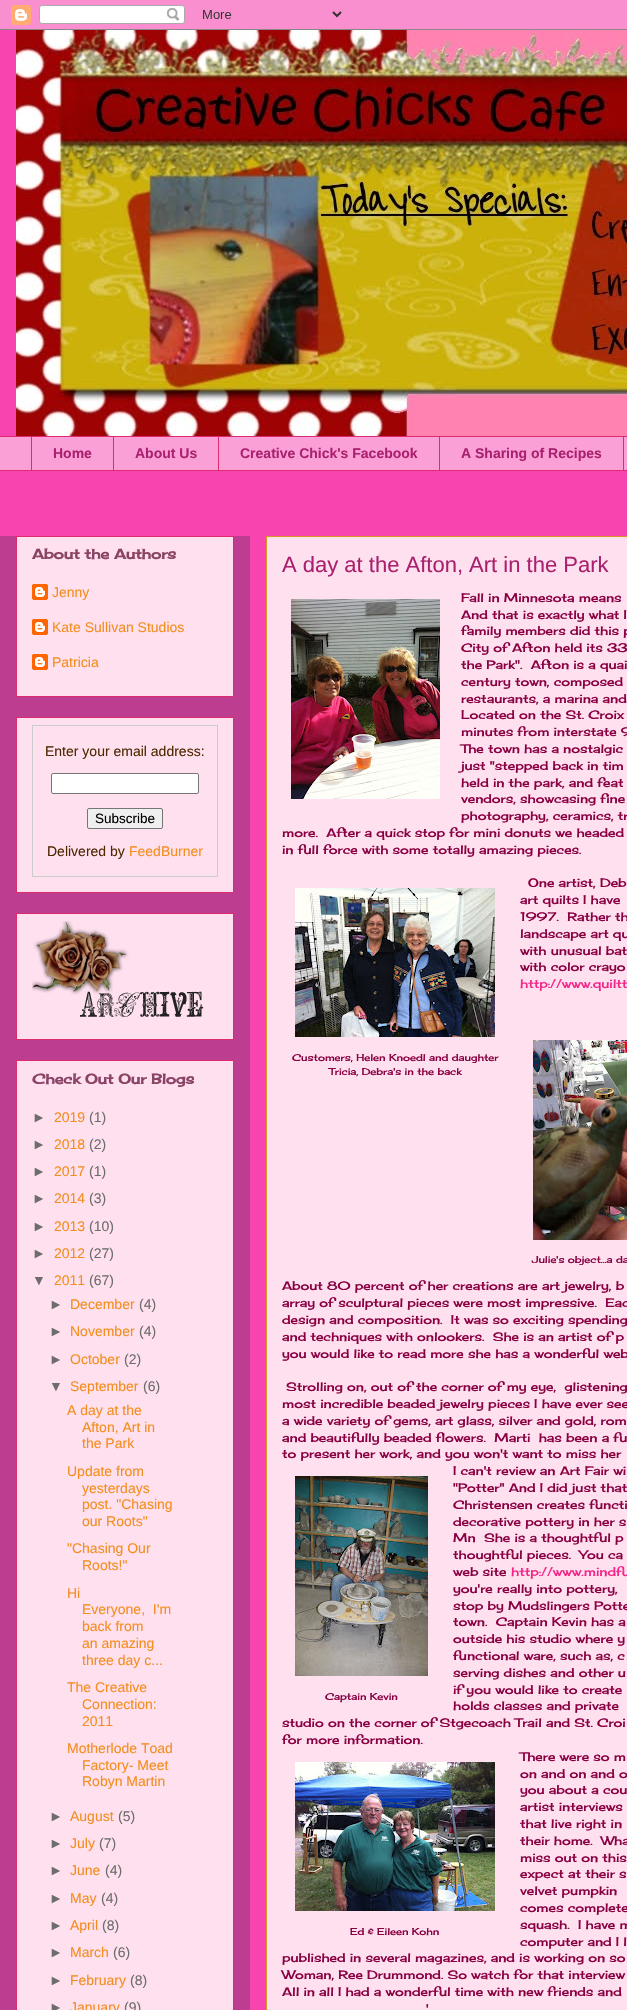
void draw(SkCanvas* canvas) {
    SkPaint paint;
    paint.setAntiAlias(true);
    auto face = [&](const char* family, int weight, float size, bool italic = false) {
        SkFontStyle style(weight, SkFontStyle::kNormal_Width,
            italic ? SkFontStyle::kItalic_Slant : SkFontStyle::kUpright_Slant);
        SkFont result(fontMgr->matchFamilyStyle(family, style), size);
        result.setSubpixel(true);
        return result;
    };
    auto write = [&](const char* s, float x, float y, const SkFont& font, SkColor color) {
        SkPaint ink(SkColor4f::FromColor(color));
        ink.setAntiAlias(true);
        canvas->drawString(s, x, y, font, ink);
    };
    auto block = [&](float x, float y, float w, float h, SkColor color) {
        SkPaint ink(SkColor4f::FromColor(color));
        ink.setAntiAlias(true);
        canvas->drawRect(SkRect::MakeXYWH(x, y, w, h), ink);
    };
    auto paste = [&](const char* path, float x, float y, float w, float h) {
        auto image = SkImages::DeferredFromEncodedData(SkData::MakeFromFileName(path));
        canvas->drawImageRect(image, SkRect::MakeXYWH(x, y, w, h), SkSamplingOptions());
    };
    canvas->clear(SkColorSetRGB(247, 68, 175));
    paste("pic1.png", 0, 0, 627, 30);
    paste("pic2.png", 16, 30, 611, 406);
    block(0, 437, 627, 33, SkColorSetRGB(251, 160, 214));
    block(0, 436, 627, 1, SkColorSetRGB(222, 42, 110));
    block(31, 436, 1, 35, SkColorSetRGB(222, 42, 110));
    auto kFont1 = face("Liberation Sans", 700, 14);
    write("Home", 53, 458, kFont1, SkColorSetRGB(169, 33, 110));
    block(113, 436, 1, 35, SkColorSetRGB(222, 42, 110));
    write("About Us", 135, 458, kFont1, SkColorSetRGB(169, 33, 110));
    block(218, 436, 1, 35, SkColorSetRGB(222, 42, 110));
    write("Creative Chick's Facebook", 240, 458, kFont1, SkColorSetRGB(169, 33, 110));
    block(439, 436, 1, 35, SkColorSetRGB(222, 42, 110));
    write("A Sharing of Recipes", 461, 458, kFont1, SkColorSetRGB(169, 33, 110));
    block(623, 436, 1, 35, SkColorSetRGB(222, 42, 110));
    block(0, 470, 627, 1, SkColorSetRGB(222, 42, 110));
    block(0, 536, 250, 1474, SkColorSetRGB(189, 61, 145));
    paint.setColor(SkColorSetRGB(255, 224, 239));
    canvas->drawRect(SkRect::MakeXYWH(16.5f, 536.5f, 217, 160), paint);
    paint.setStyle(SkPaint::kStroke_Style);
    paint.setStrokeWidth(1);
    paint.setColor(SkColorSetRGB(222, 42, 110));
    canvas->drawRect(SkRect::MakeXYWH(16.5f, 536.5f, 217, 160), paint);
    auto kFont2 = face("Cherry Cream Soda", 700, 14);
    write("About the Authors", 32, 559, kFont2, SkColorSetRGB(137, 68, 101));
    paste("pic3.png", 32, 584, 16, 16);
    auto kFont3 = face("Liberation Sans", 400, 14);
    write("Jenny", 52, 597, kFont3, SkColorSetRGB(244, 141, 29));
    paste("pic3.png", 32, 619, 16, 16);
    write("Kate Sullivan Studios", 52, 632, kFont3, SkColorSetRGB(244, 141, 29));
    paste("pic3.png", 32, 654, 16, 16);
    write("Patricia", 52, 667, kFont3, SkColorSetRGB(244, 141, 29));
    paint.setStyle(SkPaint::kFill_Style);
    paint.setColor(SkColorSetRGB(255, 224, 239));
    canvas->drawRect(SkRect::MakeXYWH(16.5f, 717.5f, 217, 175), paint);
    paint.setStyle(SkPaint::kStroke_Style);
    paint.setColor(SkColorSetRGB(222, 42, 110));
    canvas->drawRect(SkRect::MakeXYWH(16.5f, 717.5f, 217, 175), paint);
    paint.setColor(SkColorSetRGB(204, 204, 204));
    canvas->drawRect(SkRect::MakeXYWH(32.5f, 725.5f, 185, 151), paint);
    write("Enter your email address:", 45, 756, kFont3, SkColorSetRGB(78, 40, 0));
    paint.setStyle(SkPaint::kFill_Style);
    paint.setColor(SK_ColorWHITE);
    canvas->drawRoundRect(SkRect::MakeXYWH(51.5f, 773.5f, 147, 20), 1.5f, 1.5f, paint);
    paint.setStyle(SkPaint::kStroke_Style);
    paint.setColor(SkColorSetRGB(118, 118, 118));
    canvas->drawRoundRect(SkRect::MakeXYWH(51.5f, 773.5f, 147, 20), 1.5f, 1.5f, paint);
    paint.setStyle(SkPaint::kFill_Style);
    paint.setColor(SkColorSetRGB(239, 239, 239));
    canvas->drawRoundRect(SkRect::MakeXYWH(87.5f, 808.5f, 75, 20), 1.5f, 1.5f, paint);
    paint.setStyle(SkPaint::kStroke_Style);
    paint.setColor(SkColorSetRGB(118, 118, 118));
    canvas->drawRoundRect(SkRect::MakeXYWH(87.5f, 808.5f, 75, 20), 1.5f, 1.5f, paint);
    auto kFont4 = face("Liberation Sans", 400, 13.5f);
    write("Subscribe", 95, 823, kFont4, SK_ColorBLACK);
    write("Delivered by", 47, 856, kFont3, SkColorSetRGB(78, 40, 0));
    write("FeedBurner", 129, 856, kFont3, SkColorSetRGB(244, 141, 29));
    paint.setStyle(SkPaint::kFill_Style);
    paint.setColor(SkColorSetRGB(255, 224, 239));
    canvas->drawRect(SkRect::MakeXYWH(16.5f, 913.5f, 217, 126), paint);
    paint.setStyle(SkPaint::kStroke_Style);
    paint.setColor(SkColorSetRGB(222, 42, 110));
    canvas->drawRect(SkRect::MakeXYWH(16.5f, 913.5f, 217, 126), paint);
    paste("pic4.png", 32, 921, 172, 96);
    paint.setStyle(SkPaint::kFill_Style);
    paint.setColor(SkColorSetRGB(255, 224, 239));
    canvas->drawRect(SkRect::MakeXYWH(16.5f, 1060.5f, 217, 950), paint);
    paint.setStyle(SkPaint::kStroke_Style);
    paint.setColor(SkColorSetRGB(222, 42, 110));
    canvas->drawRect(SkRect::MakeXYWH(16.5f, 1060.5f, 217, 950), paint);
    write("Check Out Our Blogs", 32, 1084, kFont2, SkColorSetRGB(137, 68, 101));
    write("►", 32, 1122, kFont3, SkColorSetRGB(109, 109, 109));
    write("2019", 54, 1122, kFont3, SkColorSetRGB(244, 141, 29));
    write("(1)", 89, 1122, kFont3, SkColorSetRGB(109, 109, 109));
    write("►", 32, 1149, kFont3, SkColorSetRGB(109, 109, 109));
    write("2018", 54, 1149, kFont3, SkColorSetRGB(244, 141, 29));
    write("(2)", 89, 1149, kFont3, SkColorSetRGB(109, 109, 109));
    write("►", 32, 1176, kFont3, SkColorSetRGB(109, 109, 109));
    write("2017", 54, 1176, kFont3, SkColorSetRGB(244, 141, 29));
    write("(1)", 89, 1176, kFont3, SkColorSetRGB(109, 109, 109));
    write("►", 32, 1203, kFont3, SkColorSetRGB(109, 109, 109));
    write("2014", 54, 1203, kFont3, SkColorSetRGB(244, 141, 29));
    write("(3)", 89, 1203, kFont3, SkColorSetRGB(109, 109, 109));
    write("►", 32, 1231, kFont3, SkColorSetRGB(109, 109, 109));
    write("2013", 54, 1231, kFont3, SkColorSetRGB(244, 141, 29));
    write("(10)", 89, 1231, kFont3, SkColorSetRGB(109, 109, 109));
    write("►", 32, 1258, kFont3, SkColorSetRGB(109, 109, 109));
    write("2012", 54, 1258, kFont3, SkColorSetRGB(244, 141, 29));
    write("(27)", 89, 1258, kFont3, SkColorSetRGB(109, 109, 109));
    write("▼", 32, 1285, kFont3, SkColorSetRGB(109, 109, 109));
    write("2011", 54, 1285, kFont3, SkColorSetRGB(244, 141, 29));
    write("(67)", 89, 1285, kFont3, SkColorSetRGB(109, 109, 109));
    write("►", 49, 1309, kFont3, SkColorSetRGB(109, 109, 109));
    write("December", 70, 1309, kFont3, SkColorSetRGB(244, 141, 29));
    write("(4)", 139, 1309, kFont3, SkColorSetRGB(109, 109, 109));
    write("►", 49, 1336, kFont3, SkColorSetRGB(109, 109, 109));
    write("November", 70, 1336, kFont3, SkColorSetRGB(244, 141, 29));
    write("(4)", 139, 1336, kFont3, SkColorSetRGB(109, 109, 109));
    write("►", 49, 1364, kFont3, SkColorSetRGB(109, 109, 109));
    write("October", 70, 1364, kFont3, SkColorSetRGB(244, 141, 29));
    write("(2)", 124, 1364, kFont3, SkColorSetRGB(109, 109, 109));
    write("▼", 49, 1391, kFont3, SkColorSetRGB(109, 109, 109));
    write("September", 70, 1391, kFont3, SkColorSetRGB(244, 141, 29));
    write("(6)", 143, 1391, kFont3, SkColorSetRGB(109, 109, 109));
    write("A day at the", 67, 1415, kFont3, SkColorSetRGB(244, 141, 29));
    write("Afton, Art in", 82, 1432, kFont3, SkColorSetRGB(244, 141, 29));
    write("the Park", 82, 1448, kFont3, SkColorSetRGB(244, 141, 29));
    write("Update from", 67, 1476, kFont3, SkColorSetRGB(244, 141, 29));
    write("yesterdays", 82, 1493, kFont3, SkColorSetRGB(244, 141, 29));
    write("post. \"Chasing", 82, 1509, kFont3, SkColorSetRGB(244, 141, 29));
    write("our Roots\"", 82, 1526, kFont3, SkColorSetRGB(244, 141, 29));
    write("\"Chasing Our", 67, 1553, kFont3, SkColorSetRGB(244, 141, 29));
    write("Roots!\"", 82, 1570, kFont3, SkColorSetRGB(244, 141, 29));
    write("Hi", 67, 1598, kFont3, SkColorSetRGB(244, 141, 29));
    write("Everyone,  I'm", 82, 1614, kFont3, SkColorSetRGB(244, 141, 29));
    write("back from", 82, 1631, kFont3, SkColorSetRGB(244, 141, 29));
    write("an amazing", 82, 1648, kFont3, SkColorSetRGB(244, 141, 29));
    write("three day c...", 82, 1665, kFont3, SkColorSetRGB(244, 141, 29));
    write("The Creative", 67, 1692, kFont3, SkColorSetRGB(244, 141, 29));
    write("Connection:", 82, 1709, kFont3, SkColorSetRGB(244, 141, 29));
    write("2011", 82, 1726, kFont3, SkColorSetRGB(244, 141, 29));
    write("Motherlode Toad", 67, 1753, kFont3, SkColorSetRGB(244, 141, 29));
    write("Factory- Meet", 82, 1770, kFont3, SkColorSetRGB(244, 141, 29));
    write("Robyn Martin", 82, 1786, kFont3, SkColorSetRGB(244, 141, 29));
    write("►", 49, 1821, kFont3, SkColorSetRGB(109, 109, 109));
    write("August", 70, 1821, kFont3, SkColorSetRGB(244, 141, 29));
    write("(5)", 118, 1821, kFont3, SkColorSetRGB(109, 109, 109));
    write("►", 49, 1848, kFont3, SkColorSetRGB(109, 109, 109));
    write("July", 70, 1848, kFont3, SkColorSetRGB(244, 141, 29));
    write("(7)", 99, 1848, kFont3, SkColorSetRGB(109, 109, 109));
    write("►", 49, 1875, kFont3, SkColorSetRGB(109, 109, 109));
    write("June", 70, 1875, kFont3, SkColorSetRGB(244, 141, 29));
    write("(4)", 105, 1875, kFont3, SkColorSetRGB(109, 109, 109));
    write("►", 49, 1903, kFont3, SkColorSetRGB(109, 109, 109));
    write("May", 70, 1903, kFont3, SkColorSetRGB(244, 141, 29));
    write("(4)", 101, 1903, kFont3, SkColorSetRGB(109, 109, 109));
    write("►", 49, 1930, kFont3, SkColorSetRGB(109, 109, 109));
    write("April", 70, 1930, kFont3, SkColorSetRGB(244, 141, 29));
    write("(8)", 102, 1930, kFont3, SkColorSetRGB(109, 109, 109));
    write("►", 49, 1957, kFont3, SkColorSetRGB(109, 109, 109));
    write("March", 70, 1957, kFont3, SkColorSetRGB(244, 141, 29));
    write("(6)", 113, 1957, kFont3, SkColorSetRGB(109, 109, 109));
    write("►", 49, 1985, kFont3, SkColorSetRGB(109, 109, 109));
    write("February", 70, 1985, kFont3, SkColorSetRGB(244, 141, 29));
    write("(8)", 130, 1985, kFont3, SkColorSetRGB(109, 109, 109));
    write("►", 49, 2012, kFont3, SkColorSetRGB(109, 109, 109));
    write("January", 70, 2012, kFont3, SkColorSetRGB(244, 141, 29));
    write("(9)", 124, 2012, kFont3, SkColorSetRGB(109, 109, 109));
    paint.setStyle(SkPaint::kFill_Style);
    paint.setColor(SkColorSetRGB(255, 224, 239));
    canvas->drawRect(SkRect::MakeXYWH(266.5f, 536.5f, 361, 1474), paint);
    paint.setStyle(SkPaint::kStroke_Style);
    paint.setColor(SkColorSetRGB(220, 149, 34));
    canvas->drawRect(SkRect::MakeXYWH(266.5f, 536.5f, 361, 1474), paint);
    auto kFont5 = face("Liberation Sans", 400, 22);
    write("A day at the Afton, Art in the Park", 282, 572, kFont5, SkColorSetRGB(169, 33, 110));
    auto kFont6 = face("Cherry Cream Soda", 400, 12);
    write("Fall in Minnesota means", 461, 602, kFont6, SkColorSetRGB(137, 0, 66));
    paste("pic5.png", 291, 599, 149, 200);
    write("And that is exactly what I", 461, 619, kFont6, SkColorSetRGB(137, 0, 66));
    write("family members did this p", 461, 635, kFont6, SkColorSetRGB(137, 0, 66));
    write("City of Afton held its 33", 461, 652, kFont6, SkColorSetRGB(137, 0, 66));
    write("the Park\".  Afton is a quai", 461, 669, kFont6, SkColorSetRGB(137, 0, 66));
    write("century town, composed", 461, 686, kFont6, SkColorSetRGB(137, 0, 66));
    write("restaurants, a marina and", 461, 703, kFont6, SkColorSetRGB(137, 0, 66));
    write("Located on the St. Croix", 461, 719, kFont6, SkColorSetRGB(137, 0, 66));
    write("minutes from interstate 9", 461, 736, kFont6, SkColorSetRGB(137, 0, 66));
    write("The town has a nostalgic", 461, 753, kFont6, SkColorSetRGB(137, 0, 66));
    write("just \"stepped back in tim", 461, 770, kFont6, SkColorSetRGB(137, 0, 66));
    write("held in the park, and feat", 461, 787, kFont6, SkColorSetRGB(137, 0, 66));
    write("vendors, showcasing fine", 461, 803, kFont6, SkColorSetRGB(137, 0, 66));
    write("photography, ceramics, tr", 461, 820, kFont6, SkColorSetRGB(137, 0, 66));
    write("more.  After a quick stop for mini donuts we headed", 282, 837, kFont6, SkColorSetRGB(137, 0, 66));
    write("in full force with some totally amazing pieces.", 282, 854, kFont6, SkColorSetRGB(137, 0, 66));
    write("One artist, Deb", 528, 887, kFont6, SkColorSetRGB(137, 0, 66));
    write("art quilts I have", 520, 904, kFont6, SkColorSetRGB(137, 0, 66));
    write("1997.  Rather th", 520, 921, kFont6, SkColorSetRGB(137, 0, 66));
    write("landscape art qu", 520, 938, kFont6, SkColorSetRGB(137, 0, 66));
    write("with unusual bat", 520, 955, kFont6, SkColorSetRGB(137, 0, 66));
    write("with color crayo", 520, 971, kFont6, SkColorSetRGB(137, 0, 66));
    write("http://www.quiltt", 520, 988, kFont6, SkColorSetRGB(244, 37, 136));
    paste("pic6.png", 295, 888, 200, 149);
    auto kFont7 = face("Cherry Cream Soda", 400, 9.6f);
    write("Customers, Helen Knoedl and daughter", 292, 1061, kFont7, SkColorSetRGB(137, 0, 66));
    write("Tricia, Debra's in the back", 329, 1075, kFont7, SkColorSetRGB(137, 0, 66));
    paste("pic7.png", 533, 1040, 94, 200);
    write("Julie's object...a da", 532, 1263, kFont7, SkColorSetRGB(137, 0, 66));
    write("About 80 percent of her creations are art jewelry, b", 282, 1290, kFont6, SkColorSetRGB(137, 0, 66));
    write("array of sculptural pieces were most impressive.  Eac", 282, 1307, kFont6, SkColorSetRGB(137, 0, 66));
    write("design and composition.  It was so exciting spending", 282, 1324, kFont6, SkColorSetRGB(137, 0, 66));
    write("and techniques with onlookers.  She is an artist of p", 282, 1341, kFont6, SkColorSetRGB(137, 0, 66));
    write("you would like to read more she has a wonderful web", 282, 1358, kFont6, SkColorSetRGB(137, 0, 66));
    write("Strolling on, out of the corner of my eye,  glistening", 286, 1391, kFont6, SkColorSetRGB(137, 0, 66));
    write("most incredible beaded jewelry pieces I have ever see", 282, 1408, kFont6, SkColorSetRGB(137, 0, 66));
    write("a wide variety of gems, art glass, silver and gold, rom", 282, 1425, kFont6, SkColorSetRGB(137, 0, 66));
    write("and beautifully beaded flowers.  Marti  has been a fu", 282, 1442, kFont6, SkColorSetRGB(137, 0, 66));
    write("to present her work, and you won't want to miss her", 282, 1458, kFont6, SkColorSetRGB(137, 0, 66));
    write("I can't review an Art Fair wi", 453, 1475, kFont6, SkColorSetRGB(137, 0, 66));
    write("\"Potter\" And I did just that", 453, 1492, kFont6, SkColorSetRGB(137, 0, 66));
    write("Christensen creates functi", 453, 1509, kFont6, SkColorSetRGB(137, 0, 66));
    write("decorative pottery in her s", 453, 1526, kFont6, SkColorSetRGB(137, 0, 66));
    write("Mn  She is a thoughtful p", 453, 1542, kFont6, SkColorSetRGB(137, 0, 66));
    write("thoughtful pieces.  You ca", 453, 1559, kFont6, SkColorSetRGB(137, 0, 66));
    write("web site", 453, 1576, kFont6, SkColorSetRGB(137, 0, 66));
    write("http://www.mindfu", 511, 1576, kFont6, SkColorSetRGB(244, 37, 136));
    write("you're really into pottery,", 453, 1593, kFont6, SkColorSetRGB(137, 0, 66));
    write("stop by Mudslingers Potte", 453, 1610, kFont6, SkColorSetRGB(137, 0, 66));
    write("town.  Captain Kevin has a", 453, 1626, kFont6, SkColorSetRGB(137, 0, 66));
    write("outside his studio where y", 453, 1643, kFont6, SkColorSetRGB(137, 0, 66));
    write("functional ware, such as, c", 453, 1660, kFont6, SkColorSetRGB(137, 0, 66));
    write("serving dishes and other u", 453, 1677, kFont6, SkColorSetRGB(137, 0, 66));
    write("if you would like to create", 453, 1694, kFont6, SkColorSetRGB(137, 0, 66));
    paste("pic8.png", 295, 1476, 133, 200);
    write("Captain Kevin", 325, 1700, kFont7, SkColorSetRGB(137, 0, 66));
    write("holds classes and private", 453, 1710, kFont6, SkColorSetRGB(137, 0, 66));
    write("studio on the corner of Stgecoach Trail and St. Croi", 282, 1727, kFont6, SkColorSetRGB(137, 0, 66));
    write("for more information.", 282, 1744, kFont6, SkColorSetRGB(137, 0, 66));
    write("There were so m", 520, 1761, kFont6, SkColorSetRGB(137, 0, 66));
    write("on and on and o", 520, 1778, kFont6, SkColorSetRGB(137, 0, 66));
    write("you about a cou", 520, 1794, kFont6, SkColorSetRGB(137, 0, 66));
    write("artist interviews", 520, 1811, kFont6, SkColorSetRGB(137, 0, 66));
    write("that live right in", 520, 1828, kFont6, SkColorSetRGB(137, 0, 66));
    write("their home.  Wha", 520, 1845, kFont6, SkColorSetRGB(137, 0, 66));
    write("miss out on this", 520, 1862, kFont6, SkColorSetRGB(137, 0, 66));
    write("expect at their s", 520, 1878, kFont6, SkColorSetRGB(137, 0, 66));
    write("velvet pumpkin", 520, 1895, kFont6, SkColorSetRGB(137, 0, 66));
    write("comes complete", 520, 1912, kFont6, SkColorSetRGB(137, 0, 66));
    paste("pic9.png", 295, 1762, 200, 149);
    write("Ed & Eileen Kohn", 350, 1935, kFont7, SkColorSetRGB(137, 0, 66));
    write("squash.  I have m", 520, 1929, kFont6, SkColorSetRGB(137, 0, 66));
    write("computer and I l", 520, 1946, kFont6, SkColorSetRGB(137, 0, 66));
    write("published in several magazines, and is working on so", 282, 1962, kFont6, SkColorSetRGB(137, 0, 66));
    write("Woman, Ree Drummond. So watch for that interview", 282, 1979, kFont6, SkColorSetRGB(137, 0, 66));
    write("All in all I had a wonderful time with new friends and", 282, 1996, kFont6, SkColorSetRGB(137, 0, 66));
    write("'", 426, 2013, kFont6, SkColorSetRGB(137, 0, 66));
}
